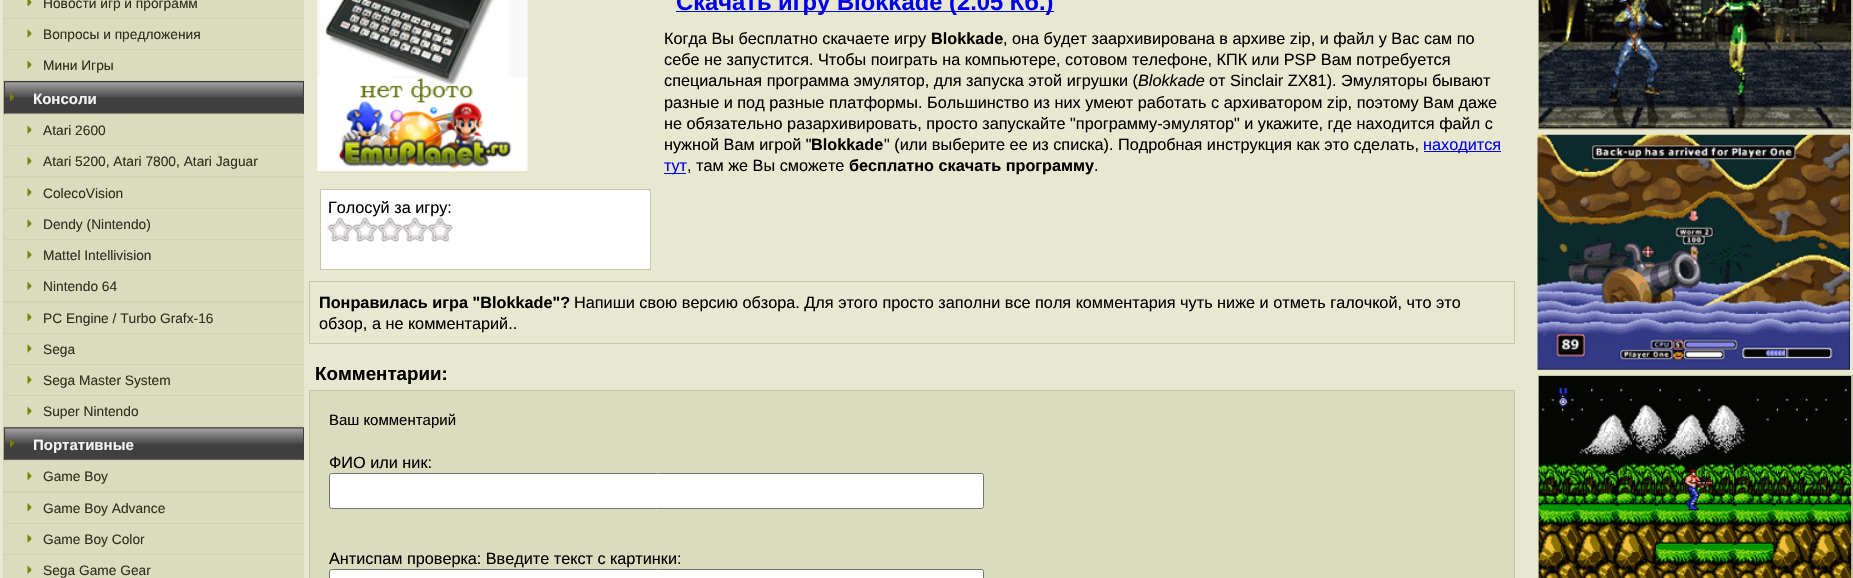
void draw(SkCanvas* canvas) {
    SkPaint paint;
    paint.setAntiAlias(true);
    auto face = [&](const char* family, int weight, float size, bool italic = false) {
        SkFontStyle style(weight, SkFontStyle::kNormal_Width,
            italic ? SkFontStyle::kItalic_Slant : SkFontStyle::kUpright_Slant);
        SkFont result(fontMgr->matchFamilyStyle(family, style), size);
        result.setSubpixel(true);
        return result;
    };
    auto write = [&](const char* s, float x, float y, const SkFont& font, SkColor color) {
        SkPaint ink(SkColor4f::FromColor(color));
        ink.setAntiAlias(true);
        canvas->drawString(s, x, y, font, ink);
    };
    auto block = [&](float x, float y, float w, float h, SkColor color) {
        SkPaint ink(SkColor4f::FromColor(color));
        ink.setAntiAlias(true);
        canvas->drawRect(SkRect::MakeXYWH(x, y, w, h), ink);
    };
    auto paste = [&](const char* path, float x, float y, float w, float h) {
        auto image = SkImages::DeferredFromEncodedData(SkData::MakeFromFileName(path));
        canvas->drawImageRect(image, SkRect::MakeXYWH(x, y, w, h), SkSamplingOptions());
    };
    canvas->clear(SkColorSetRGB(232, 232, 208));
    block(3, 0, 301, 578, SkColorSetRGB(211, 210, 180));
    block(4, 0, 300, 18, SkColorSetRGB(219, 219, 190));
    paste("pic1.png", 27, 0, 5, 6);
    auto kFont1 = face("Liberation Sans", 400, 13.75f);
    write("Новости игр и программ", 43, 8, kFont1, SkColorSetRGB(47, 47, 32));
    block(4, 19, 300, 30, SkColorSetRGB(219, 219, 190));
    paste("pic2.png", 27, 29, 5, 9);
    write("Вопросы и предложения", 43, 39, kFont1, SkColorSetRGB(47, 47, 32));
    block(4, 50, 300, 30, SkColorSetRGB(219, 219, 190));
    paste("pic3.png", 27, 61, 5, 8);
    write("Мини Игры", 43, 70, kFont1, SkColorSetRGB(47, 47, 32));
    paste("pic4.png", 3, 81, 300, 33);
    block(303, 81, 1, 33, SkColorSetRGB(64, 64, 64));
    block(4, 81, 1, 33, SkColorSetRGB(64, 64, 64));
    paste("pic5.png", 10, 93, 4, 8);
    auto kFont2 = face("Liberation Sans", 700, 15);
    write("Консоли", 33, 104, kFont2, SkColorSetRGB(243, 243, 243));
    block(4, 115, 300, 30, SkColorSetRGB(219, 219, 190));
    paste("pic3.png", 27, 126, 5, 8);
    write("Atari 2600", 43, 135, kFont1, SkColorSetRGB(47, 47, 32));
    block(4, 146, 300, 30, SkColorSetRGB(219, 219, 190));
    paste("pic6.png", 27, 157, 5, 8);
    write("Atari 5200, Atari 7800, Atari Jaguar", 43, 166, kFont1, SkColorSetRGB(47, 47, 32));
    block(4, 178, 300, 30, SkColorSetRGB(219, 219, 190));
    paste("pic7.png", 27, 188, 5, 8);
    write("ColecoVision", 43, 198, kFont1, SkColorSetRGB(47, 47, 32));
    block(4, 209, 300, 30, SkColorSetRGB(219, 219, 190));
    paste("pic2.png", 27, 219, 5, 9);
    write("Dendy (Nintendo)", 43, 229, kFont1, SkColorSetRGB(47, 47, 32));
    block(4, 240, 300, 30, SkColorSetRGB(219, 219, 190));
    paste("pic3.png", 27, 251, 5, 8);
    write("Mattel Intellivision", 43, 260, kFont1, SkColorSetRGB(47, 47, 32));
    block(4, 271, 300, 30, SkColorSetRGB(219, 219, 190));
    paste("pic6.png", 27, 282, 5, 8);
    write("Nintendo 64", 43, 291, kFont1, SkColorSetRGB(47, 47, 32));
    block(4, 303, 300, 30, SkColorSetRGB(219, 219, 190));
    paste("pic7.png", 27, 313, 5, 8);
    write("PC Engine / Turbo Grafx-16", 43, 323, kFont1, SkColorSetRGB(47, 47, 32));
    block(4, 334, 300, 30, SkColorSetRGB(219, 219, 190));
    paste("pic2.png", 27, 344, 5, 9);
    write("Sega", 43, 354, kFont1, SkColorSetRGB(47, 47, 32));
    block(4, 365, 300, 30, SkColorSetRGB(219, 219, 190));
    paste("pic3.png", 27, 376, 5, 8);
    write("Sega Master System", 43, 385, kFont1, SkColorSetRGB(47, 47, 32));
    block(4, 396, 300, 30, SkColorSetRGB(219, 219, 190));
    paste("pic6.png", 27, 407, 5, 8);
    write("Super Nintendo", 43, 416, kFont1, SkColorSetRGB(47, 47, 32));
    paste("pic8.png", 3, 427, 301, 33);
    block(303, 428, 1, 32, SkColorSetRGB(64, 64, 64));
    block(4, 428, 1, 32, SkColorSetRGB(64, 64, 64));
    paste("pic9.png", 10, 439, 4, 9);
    write("Портативные", 33, 450, kFont2, SkColorSetRGB(243, 243, 243));
    block(4, 461, 300, 30, SkColorSetRGB(219, 219, 190));
    paste("pic6.png", 27, 472, 5, 8);
    write("Game Boy", 43, 481, kFont1, SkColorSetRGB(47, 47, 32));
    block(4, 493, 300, 30, SkColorSetRGB(219, 219, 190));
    paste("pic7.png", 27, 503, 5, 8);
    write("Game Boy Advance", 43, 513, kFont1, SkColorSetRGB(47, 47, 32));
    block(4, 524, 300, 30, SkColorSetRGB(219, 219, 190));
    paste("pic2.png", 27, 534, 5, 9);
    write("Game Boy Color", 43, 544, kFont1, SkColorSetRGB(47, 47, 32));
    block(4, 555, 300, 23, SkColorSetRGB(219, 219, 190));
    paste("pic3.png", 27, 566, 5, 8);
    write("Sega Game Gear", 43, 575, kFont1, SkColorSetRGB(47, 47, 32));
    block(676, 11, 378, 1, SkColorSetRGB(0, 0, 238));
    auto kFont3 = face("Liberation Sans", 700, 23.75f);
    write("Скачать игру Blokkade (2.05 Кб.)", 676, 10, kFont3, SkColorSetRGB(0, 0, 238));
    auto kFont4 = face("Liberation Sans", 400, 16.25f);
    write("Когда Вы бесплатно скачаете игру", 664, 44, kFont4, SK_ColorBLACK);
    auto kFont5 = face("Liberation Sans", 700, 16.25f);
    write("Blokkade", 931, 44, kFont5, SK_ColorBLACK);
    write(", она будет заархивирована в архиве zip, и файл у Вас сам по", 1003, 44, kFont4, SK_ColorBLACK);
    write("себе не запустится. Чтобы поиграть на компьютере, сотовом телефоне, КПК или PSP Вам потребуется", 664, 65, kFont4, SK_ColorBLACK);
    write("специальная программа эмулятор, для запуска этой игрушки (", 664, 86, kFont4, SK_ColorBLACK);
    auto kFont6 = face("Liberation Sans", 400, 16.25f, true);
    write("Blokkade", 1138, 86, kFont6, SK_ColorBLACK);
    write("от Sinclair ZX81). Эмуляторы бывают", 1209, 86, kFont4, SK_ColorBLACK);
    write("разные и под разные платформы. Большинство из них умеют работать с архиватором zip, поэтому Вам даже", 664, 108, kFont4, SK_ColorBLACK);
    write("не обязательно разархивировать, просто запускайте \"программу-эмулятор\" и укажите, где находится файл с", 664, 129, kFont4, SK_ColorBLACK);
    write("нужной Вам игрой \"", 664, 150, kFont4, SK_ColorBLACK);
    write("Blokkade", 811, 150, kFont5, SK_ColorBLACK);
    write("\" (или выберите ее из списка). Подробная инструкция как это сделать,", 884, 150, kFont4, SK_ColorBLACK);
    block(1424, 151, 77, 1, SkColorSetRGB(0, 0, 238));
    write("находится", 1423, 150, kFont4, SkColorSetRGB(0, 0, 238));
    block(664, 173, 22, 1, SkColorSetRGB(0, 0, 238));
    write("тут", 664, 171, kFont4, SkColorSetRGB(0, 0, 238));
    write(", там же Вы сможете", 687, 171, kFont4, SK_ColorBLACK);
    write("бесплатно скачать программу", 849, 171, kFont5, SK_ColorBLACK);
    write(".", 1094, 171, kFont4, SK_ColorBLACK);
    paste("pic10.png", 317, 0, 211, 171);
    paint.setColor(SK_ColorWHITE);
    canvas->drawRect(SkRect::MakeXYWH(320.5f, 189.5f, 330, 80), paint);
    paint.setStyle(SkPaint::kStroke_Style);
    paint.setStrokeWidth(1);
    paint.setColor(SkColorSetRGB(198, 198, 165));
    canvas->drawRect(SkRect::MakeXYWH(320.5f, 189.5f, 330, 80), paint);
    write("Голосуй за игру:", 328, 213, kFont4, SK_ColorBLACK);
    paste("pic11.png", 327, 217, 126, 26);
    canvas->drawRect(SkRect::MakeXYWH(309.5f, 281.5f, 1205, 62), paint);
    write("Понравилась игра \"Blokkade\"?", 319, 308, kFont5, SK_ColorBLACK);
    write("Напиши свою версию обзора. Для этого просто заполни все поля комментария чуть ниже и отметь галочкой, что это", 574, 308, kFont4, SK_ColorBLACK);
    write("обзор, а не комментарий..", 319, 329, kFont4, SK_ColorBLACK);
    auto kFont7 = face("Liberation Sans", 700, 18.75f);
    write("Комментарии:", 315, 380, kFont7, SK_ColorBLACK);
    paint.setStyle(SkPaint::kFill_Style);
    paint.setColor(SkColorSetRGB(219, 219, 190));
    canvas->drawRect(SkRect::MakeXYWH(309.5f, 390.5f, 1205, 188), paint);
    paint.setStyle(SkPaint::kStroke_Style);
    paint.setColor(SkColorSetRGB(198, 198, 165));
    canvas->drawRect(SkRect::MakeXYWH(309.5f, 390.5f, 1205, 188), paint);
    auto kFont8 = face("Liberation Sans", 400, 15);
    write("Ваш комментарий", 329, 425, kFont8, SK_ColorBLACK);
    write("ФИО или ник:", 329, 468, kFont4, SK_ColorBLACK);
    paint.setStyle(SkPaint::kFill_Style);
    paint.setColor(SK_ColorWHITE);
    canvas->drawRoundRect(SkRect::MakeXYWH(329.5f, 473.5f, 654, 35), 2, 2, paint);
    paint.setStyle(SkPaint::kStroke_Style);
    paint.setColor(SkColorSetRGB(118, 118, 118));
    canvas->drawRoundRect(SkRect::MakeXYWH(329.5f, 473.5f, 654, 35), 2, 2, paint);
    write("Антиспам проверка: Введите текст с картинки:", 329, 564, kFont4, SK_ColorBLACK);
    paint.setStyle(SkPaint::kFill_Style);
    paint.setColor(SK_ColorWHITE);
    canvas->drawRoundRect(SkRect::MakeXYWH(329.5f, 569.5f, 654, 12), 2, 2, paint);
    paint.setStyle(SkPaint::kStroke_Style);
    paint.setColor(SkColorSetRGB(118, 118, 118));
    canvas->drawRoundRect(SkRect::MakeXYWH(329.5f, 569.5f, 654, 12), 2, 2, paint);
    paint.setColor(SkColorSetRGB(198, 198, 165));
    canvas->drawRect(SkRect::MakeXYWH(1538.5f, -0.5f, 314, 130), paint);
    paste("pic12.png", 1538, 0, 314, 129);
    paste("pic13.png", 1537, 134, 313, 236);
    canvas->drawRect(SkRect::MakeXYWH(1538.5f, 375.5f, 314, 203), paint);
    paste("pic14.png", 1538, 376, 314, 202);
}
